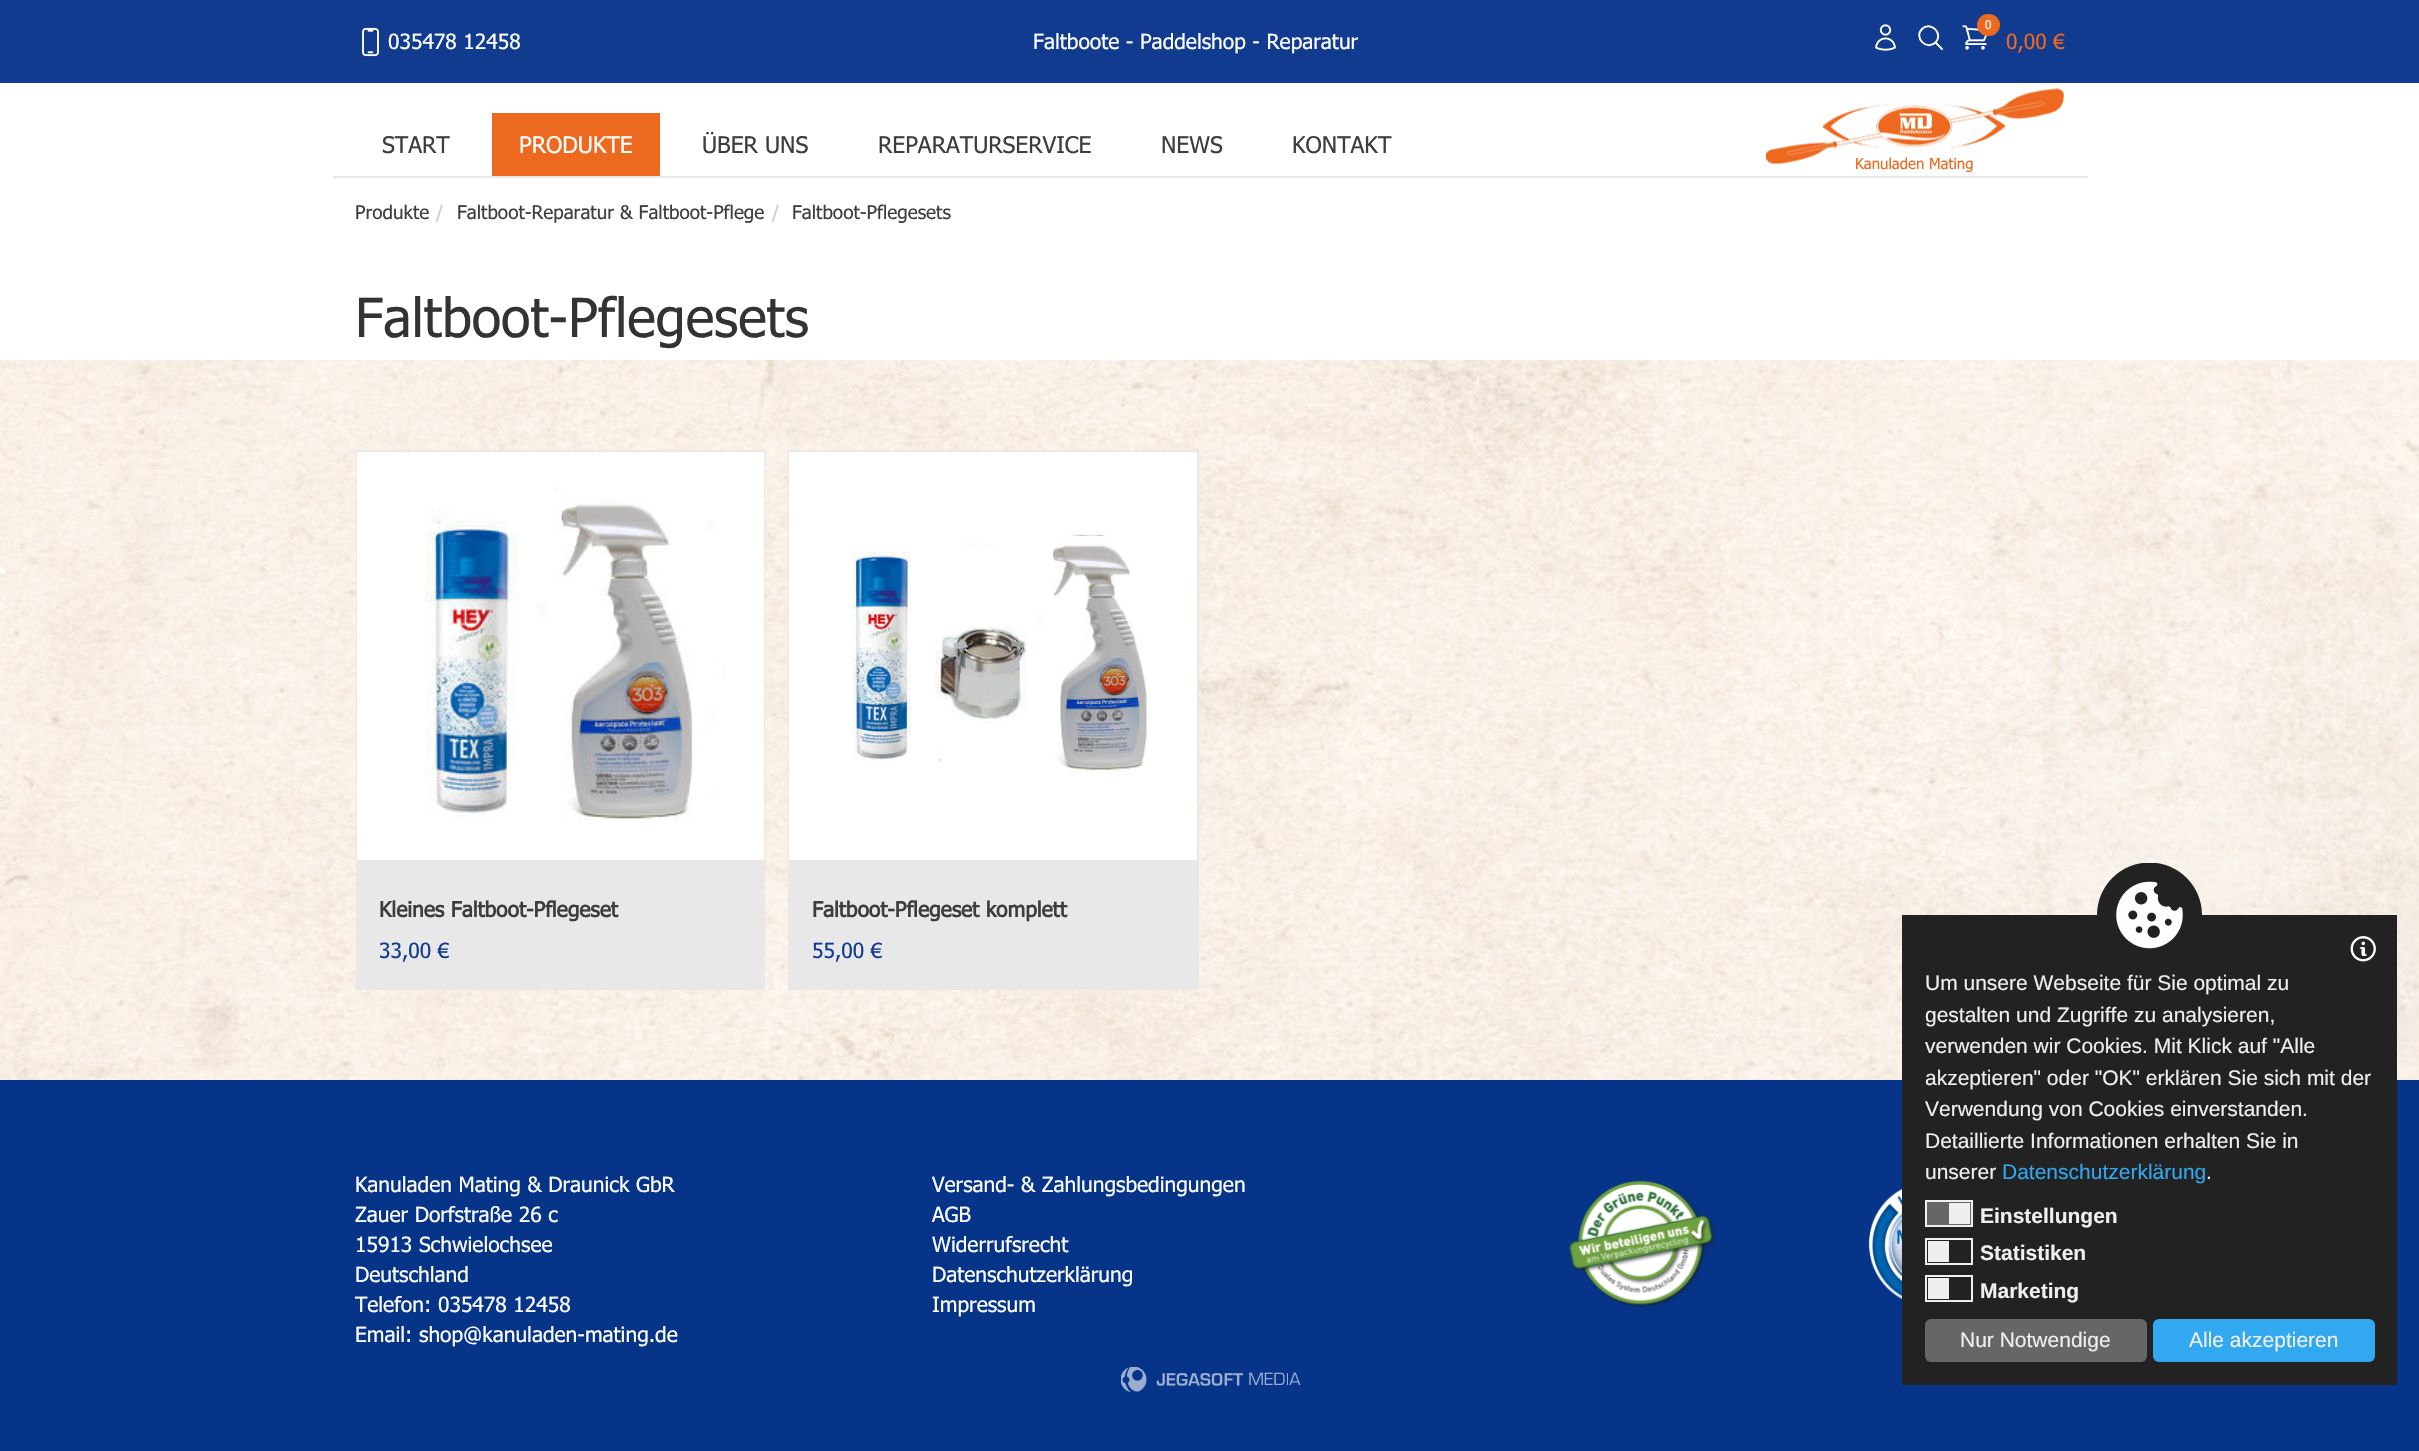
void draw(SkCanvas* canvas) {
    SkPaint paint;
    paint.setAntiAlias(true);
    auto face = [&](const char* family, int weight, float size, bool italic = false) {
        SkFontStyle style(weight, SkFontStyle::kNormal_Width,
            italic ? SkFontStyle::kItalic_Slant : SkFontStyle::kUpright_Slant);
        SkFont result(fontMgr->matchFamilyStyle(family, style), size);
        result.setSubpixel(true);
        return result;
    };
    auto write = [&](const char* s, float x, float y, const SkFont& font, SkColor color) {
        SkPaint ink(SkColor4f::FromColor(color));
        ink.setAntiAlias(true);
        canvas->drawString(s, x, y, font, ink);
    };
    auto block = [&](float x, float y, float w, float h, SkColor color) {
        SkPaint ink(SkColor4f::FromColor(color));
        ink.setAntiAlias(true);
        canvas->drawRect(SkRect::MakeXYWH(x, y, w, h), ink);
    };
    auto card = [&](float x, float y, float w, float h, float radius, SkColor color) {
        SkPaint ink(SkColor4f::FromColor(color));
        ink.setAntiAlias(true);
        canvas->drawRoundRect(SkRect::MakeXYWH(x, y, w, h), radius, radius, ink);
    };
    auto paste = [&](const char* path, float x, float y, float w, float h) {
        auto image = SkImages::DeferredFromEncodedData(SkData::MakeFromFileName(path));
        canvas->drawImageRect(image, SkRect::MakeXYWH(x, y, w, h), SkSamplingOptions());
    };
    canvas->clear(SK_ColorWHITE);
    block(0, 0, 2419, 83, SkColorSetRGB(17, 59, 143));
    paste("pic1.png", 362, 27, 17, 30);
    auto kFont1 = face("Tahoma", 400, 21);
    write("035478 12458", 388, 49, kFont1, SK_ColorWHITE);
    write("Faltboote - Paddelshop - Reparatur", 1033, 49, kFont1, SK_ColorWHITE);
    paste("pic2.png", 1875, 24, 21, 27);
    paint.setStyle(SkPaint::kStroke_Style);
    paint.setStrokeWidth(1.9f);
    paint.setStrokeCap(SkPaint::kRound_Cap);
    paint.setStrokeJoin(SkPaint::kRound_Join);
    paint.setColor(SK_ColorWHITE);
    canvas->drawPath(SkPathBuilder().moveTo(1942, 49).lineTo(1935.5f, 42.5f).moveTo(1935.5f, 42.5f).cubicTo(1944, 33.5f, 1930.5f, 20.5f, 1922, 29).cubicTo(1913.5f, 37.5f, 1926.5f, 51, 1935.5f, 42.5f).close().detach(), paint);
    paste("pic3.png", 1962, 25, 26, 25);
    card(1977, 14, 23, 22, 11, SkColorSetRGB(236, 105, 31));
    auto kFont2 = face("Tahoma", 400, 12);
    write("0", 1985, 29, kFont2, SK_ColorWHITE);
    write("0,00 €", 2006, 49, kFont1, SkColorSetRGB(236, 105, 31));
    block(333, 176, 1755, 2, SkColorSetRGB(232, 232, 232));
    auto kFont3 = face("Tahoma", 400, 23);
    write("START", 382, 153, kFont3, SkColorSetRGB(61, 61, 61));
    block(492, 113, 168, 63, SkColorSetRGB(236, 105, 31));
    write("PRODUKTE", 519, 153, kFont3, SK_ColorWHITE);
    write("ÜBER UNS", 702, 153, kFont3, SkColorSetRGB(61, 61, 61));
    write("REPARATURSERVICE", 878, 153, kFont3, SkColorSetRGB(61, 61, 61));
    write("NEWS", 1161, 153, kFont3, SkColorSetRGB(61, 61, 61));
    write("KONTAKT", 1292, 153, kFont3, SkColorSetRGB(61, 61, 61));
    paste("pic4.png", 1766, 88, 298, 76);
    auto kFont4 = face("Tahoma", 400, 15);
    write("Kanuladen Mating", 1855, 169, kFont4, SkColorSetRGB(236, 105, 31));
    auto kFont5 = face("Tahoma", 400, 18.9f);
    write("Produkte", 355, 219, kFont5, SkColorSetRGB(61, 61, 61));
    write("/", 436, 219, kFont5, SkColorSetRGB(204, 204, 204));
    write("Faltboot-Reparatur & Faltboot-Pflege", 457, 219, kFont5, SkColorSetRGB(61, 61, 61));
    write("/", 772, 219, kFont5, SkColorSetRGB(204, 204, 204));
    write("Faltboot-Pflegesets", 792, 219, kFont5, SkColorSetRGB(61, 61, 61));
    auto kFont6 = face("Tahoma", 400, 54);
    write("Faltboot-Pflegesets", 355, 337, kFont6, SkColorSetRGB(51, 51, 51));
    paste("pic5.png", 0, 360, 2419, 720);
    paint.setStrokeWidth(2);
    paint.setStrokeCap(SkPaint::kButt_Cap);
    paint.setStrokeJoin(SkPaint::kMiter_Join);
    paint.setColor(SkColorSetRGB(232, 232, 232));
    canvas->drawRect(SkRect::MakeXYWH(357, 451, 407, 538), paint);
    block(357, 452, 407, 408, SK_ColorWHITE);
    paste("pic6.png", 425, 487, 301, 335);
    block(358, 860, 405, 128, SkColorSetRGB(232, 232, 232));
    auto kFont7 = face("Tahoma", 700, 21);
    write("Kleines Faltboot-Pflegeset", 379, 917, kFont7, SkColorSetRGB(61, 61, 61));
    write("33,00 €", 379, 958, kFont1, SkColorSetRGB(17, 59, 143));
    canvas->drawRect(SkRect::MakeXYWH(789, 451, 409, 538), paint);
    block(789, 452, 408, 408, SK_ColorWHITE);
    paste("pic7.png", 852, 534, 297, 242);
    block(790, 860, 407, 128, SkColorSetRGB(232, 232, 232));
    write("Faltboot-Pflegeset komplett", 812, 917, kFont7, SkColorSetRGB(61, 61, 61));
    write("55,00 €", 812, 958, kFont1, SkColorSetRGB(17, 59, 143));
    block(0, 1080, 2419, 371, SkColorSetRGB(6, 52, 137));
    write("Kanuladen Mating & Draunick GbR", 355, 1192, kFont1, SK_ColorWHITE);
    write("Zauer Dorfstraße 26 c", 355, 1222, kFont1, SK_ColorWHITE);
    write("15913 Schwielochsee", 355, 1252, kFont1, SK_ColorWHITE);
    write("Deutschland", 355, 1282, kFont1, SK_ColorWHITE);
    write("Telefon: 035478 12458", 355, 1312, kFont1, SK_ColorWHITE);
    write("Email: shop@kanuladen-mating.de", 355, 1342, kFont1, SK_ColorWHITE);
    write("Versand- & Zahlungsbedingungen", 932, 1192, kFont1, SK_ColorWHITE);
    write("AGB", 932, 1222, kFont1, SK_ColorWHITE);
    write("Widerrufsrecht", 932, 1252, kFont1, SK_ColorWHITE);
    write("Datenschutzerklärung", 932, 1282, kFont1, SK_ColorWHITE);
    write("Impressum", 932, 1312, kFont1, SK_ColorWHITE);
    paste("pic8.png", 1568, 1180, 148, 128);
    paste("pic9.png", 1868, 1188, 34, 112);
    paste("pic10.png", 1121, 1367, 180, 25);
    block(1902, 915, 495, 470, SkColorSetRGB(34, 34, 34));
    paste("pic11.png", 2097, 863, 105, 86);
    paste("pic12.png", 2350, 936, 26, 26);
    auto kFont8 = face("Liberation Sans", 400, 21);
    write("Um unsere Webseite für Sie optimal zu", 1925, 990, kFont8, SkColorSetRGB(239, 239, 239));
    write("gestalten und Zugriffe zu analysieren,", 1925, 1022, kFont8, SkColorSetRGB(239, 239, 239));
    write("verwenden wir Cookies. Mit Klick auf \"Alle", 1925, 1053, kFont8, SkColorSetRGB(239, 239, 239));
    write("akzeptieren\" oder \"OK\" erklären Sie sich mit der", 1925, 1085, kFont8, SkColorSetRGB(239, 239, 239));
    write("Verwendung von Cookies einverstanden.", 1925, 1116, kFont8, SkColorSetRGB(239, 239, 239));
    write("Detaillierte Informationen erhalten Sie in", 1925, 1148, kFont8, SkColorSetRGB(239, 239, 239));
    write("unserer", 1925, 1179, kFont8, SkColorSetRGB(239, 239, 239));
    write("Datenschutzerklärung", 2002, 1179, kFont8, SkColorSetRGB(49, 168, 240));
    write(".", 2206, 1179, kFont8, SkColorSetRGB(239, 239, 239));
    paint.setStyle(SkPaint::kFill_Style);
    paint.setColor(SkColorSetRGB(102, 102, 102));
    canvas->drawRect(SkRect::MakeXYWH(1926, 1201, 46, 25), paint);
    paint.setStyle(SkPaint::kStroke_Style);
    paint.setColor(SkColorSetRGB(239, 239, 239));
    canvas->drawRect(SkRect::MakeXYWH(1926, 1201, 46, 25), paint);
    block(1949, 1203, 21, 21, SkColorSetRGB(239, 239, 239));
    auto kFont9 = face("Liberation Sans", 700, 21);
    write("Einstellungen", 1980, 1223, kFont9, SkColorSetRGB(239, 239, 239));
    canvas->drawRect(SkRect::MakeXYWH(1926, 1239, 46, 25), paint);
    block(1928, 1241, 21, 21, SkColorSetRGB(239, 239, 239));
    write("Statistiken", 1980, 1260, kFont9, SkColorSetRGB(239, 239, 239));
    canvas->drawRect(SkRect::MakeXYWH(1926, 1276, 46, 25), paint);
    block(1928, 1278, 21, 21, SkColorSetRGB(239, 239, 239));
    write("Marketing", 1980, 1298, kFont9, SkColorSetRGB(239, 239, 239));
    card(1925, 1319, 222, 43, 6, SkColorSetRGB(102, 102, 102));
    write("Nur Notwendige", 1960, 1347, kFont8, SkColorSetRGB(239, 239, 239));
    card(2153, 1319, 222, 43, 6, SkColorSetRGB(49, 168, 240));
    write("Alle akzeptieren", 2189, 1347, kFont8, SkColorSetRGB(239, 239, 239));
}
